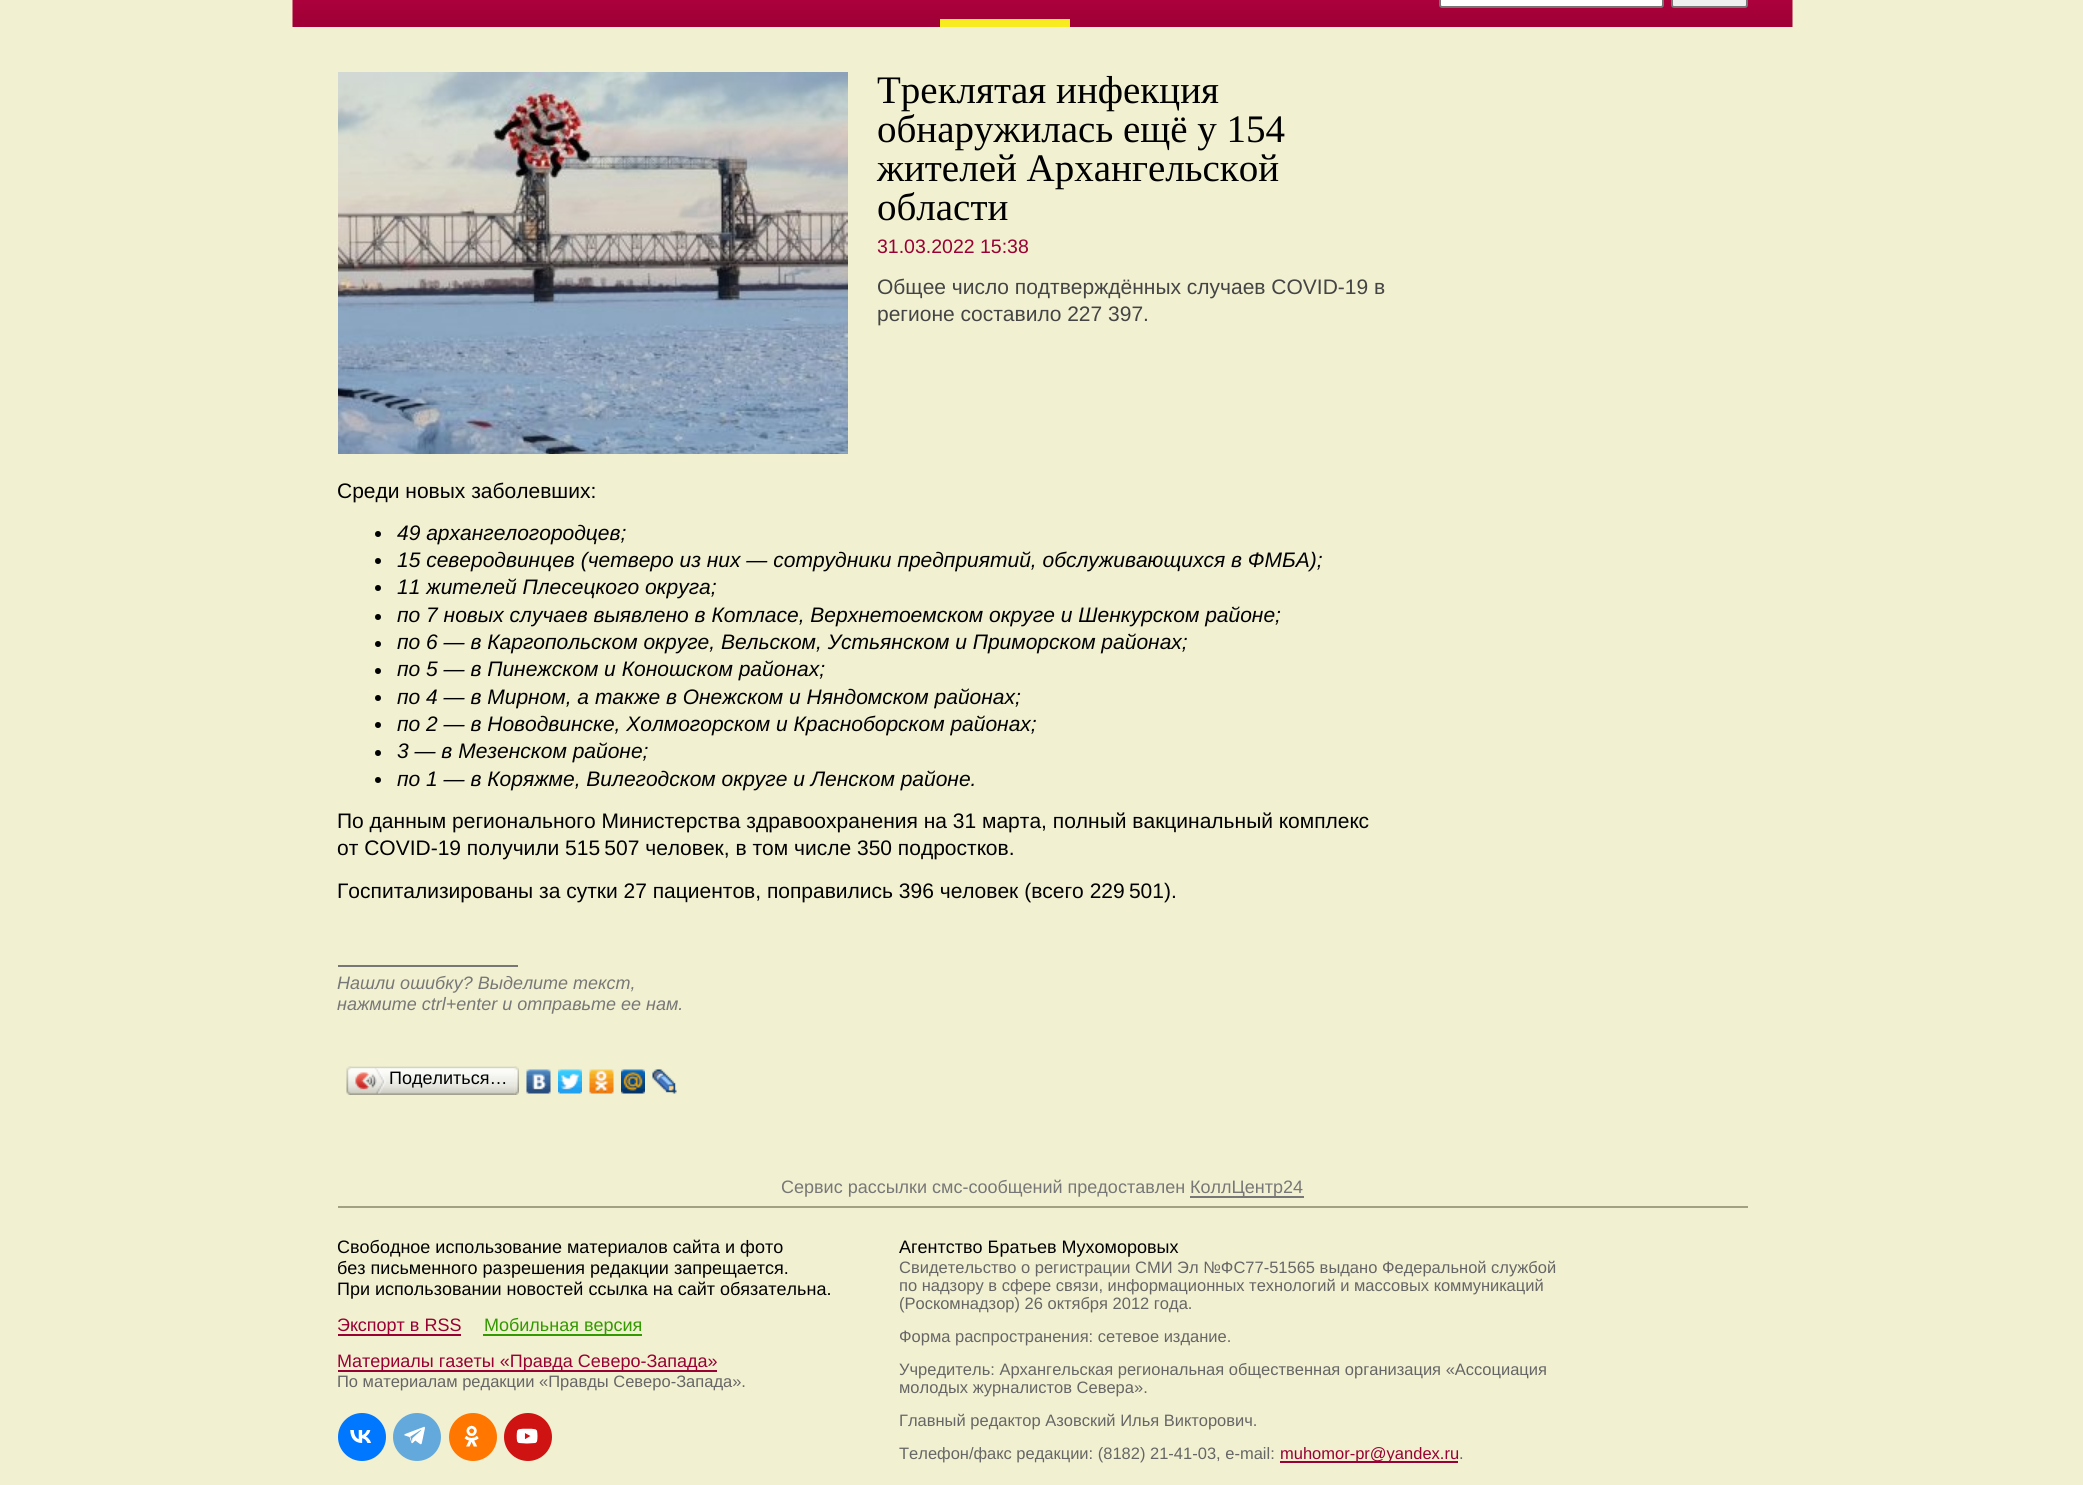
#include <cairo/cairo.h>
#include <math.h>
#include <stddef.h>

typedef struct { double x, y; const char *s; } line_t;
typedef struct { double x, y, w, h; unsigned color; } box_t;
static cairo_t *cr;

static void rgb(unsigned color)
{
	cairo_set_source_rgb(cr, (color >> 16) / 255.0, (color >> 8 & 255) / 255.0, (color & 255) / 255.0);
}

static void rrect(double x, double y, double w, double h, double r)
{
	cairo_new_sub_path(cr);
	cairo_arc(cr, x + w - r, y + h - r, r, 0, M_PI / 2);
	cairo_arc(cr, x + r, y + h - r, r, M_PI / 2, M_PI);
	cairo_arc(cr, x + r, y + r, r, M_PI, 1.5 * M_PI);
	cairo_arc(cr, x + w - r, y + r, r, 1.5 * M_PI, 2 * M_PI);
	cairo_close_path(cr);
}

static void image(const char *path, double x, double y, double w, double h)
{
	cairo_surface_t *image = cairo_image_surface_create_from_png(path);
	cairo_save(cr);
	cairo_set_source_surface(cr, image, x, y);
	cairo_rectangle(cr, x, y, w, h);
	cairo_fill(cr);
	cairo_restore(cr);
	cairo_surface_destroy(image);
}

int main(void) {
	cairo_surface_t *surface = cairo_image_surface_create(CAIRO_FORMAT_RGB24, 2083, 1485);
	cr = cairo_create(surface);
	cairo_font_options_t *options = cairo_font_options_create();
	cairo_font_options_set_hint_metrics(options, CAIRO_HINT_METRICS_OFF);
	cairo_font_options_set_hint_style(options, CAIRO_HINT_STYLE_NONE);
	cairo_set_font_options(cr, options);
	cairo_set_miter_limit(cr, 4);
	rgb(0xf1f0d1);
	cairo_paint(cr);
	image("img/1.png", 292, 0, 1501, 27);
	rgb(0xffffff);
	rrect(1440, -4, 223, 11, 2);
	cairo_fill_preserve(cr);
	rgb(0x767676);
	cairo_stroke(cr);
	rgb(0xefefef);
	rrect(1672, -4, 75, 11, 2);
	cairo_fill_preserve(cr);
	rgb(0x767676);
	cairo_stroke(cr);
	rgb(0xf8ec20);
	cairo_rectangle(cr, 940, 19, 130, 8);
	cairo_fill(cr);
	image("img/2.png", 338, 72, 510, 382);
	rgb(0x000000);
	cairo_arc(cr, 378, 534, 3, 0, 2 * M_PI);
	cairo_fill(cr);
	cairo_arc(cr, 378, 561, 3, 0, 2 * M_PI);
	cairo_fill(cr);
	cairo_arc(cr, 378, 588, 3, 0, 2 * M_PI);
	cairo_fill(cr);
	cairo_arc(cr, 378, 617, 3, 0, 2 * M_PI);
	cairo_fill(cr);
	cairo_arc(cr, 378, 644, 3, 0, 2 * M_PI);
	cairo_fill(cr);
	cairo_arc(cr, 378, 671, 3, 0, 2 * M_PI);
	cairo_fill(cr);
	cairo_arc(cr, 378, 698, 3, 0, 2 * M_PI);
	cairo_fill(cr);
	cairo_arc(cr, 378, 725, 3, 0, 2 * M_PI);
	cairo_fill(cr);
	cairo_arc(cr, 378, 753, 3, 0, 2 * M_PI);
	cairo_fill(cr);
	cairo_arc(cr, 378, 780, 3, 0, 2 * M_PI);
	cairo_fill(cr);
	rgb(0x777777);
	cairo_rectangle(cr, 338, 965, 180, 2);
	cairo_fill(cr);
	image("img/3.png", 351, 1066, 164, 29);
	image("img/4.png", 346, 1066, 5, 29);
	image("img/5.png", 355, 1068, 31, 26);
	image("img/6.png", 514, 1066, 5, 29);
	image("img/7.png", 526, 1069, 25, 25);
	image("img/8.png", 558, 1069, 24, 25);
	image("img/9.png", 589, 1069, 25, 25);
	image("img/10.png", 621, 1069, 24, 25);
	image("img/11.png", 652, 1069, 25, 25);
	{
		static const box_t items[] = {
			{1190, 1196, 114, 2, 0x777777},
			{338, 1206, 1410, 2, 0xa2a182},
			{338, 1334, 123, 2, 0x990033},
			{483, 1334, 159, 2, 0x339900},
			{338, 1370, 379, 2, 0x990033},
		};
		for (size_t i = 0; i < sizeof items / sizeof *items; i++) {
			rgb(items[i].color);
			cairo_rectangle(cr, items[i].x, items[i].y, items[i].w, items[i].h);
			cairo_fill(cr);
		}
	}
	rgb(0x0077ff);
	cairo_arc(cr, 362, 1437, 24, 0, 2 * M_PI);
	cairo_fill(cr);
	image("img/12.png", 350, 1430, 21, 13);
	rgb(0x64a9dc);
	cairo_arc(cr, 417, 1437, 24, 0, 2 * M_PI);
	cairo_fill(cr);
	image("img/13.png", 404, 1426, 21, 19);
	rgb(0xff7700);
	cairo_arc(cr, 473, 1437, 24, 0, 2 * M_PI);
	cairo_fill(cr);
	image("img/14.png", 464, 1425, 15, 22);
	rgb(0xce1312);
	cairo_arc(cr, 528, 1437, 24, 0, 2 * M_PI);
	cairo_fill(cr);
	image("img/15.png", 516, 1428, 22, 16);
	rgb(0x990033);
	cairo_rectangle(cr, 1280, 1461, 178, 2);
	cairo_fill(cr);
	cairo_select_font_face(cr, "Liberation Serif", CAIRO_FONT_SLANT_NORMAL, CAIRO_FONT_WEIGHT_NORMAL);
	cairo_set_font_size(cr, 39);
	rgb(0x000000);
	{
		static const line_t items[] = {
			{877, 103, "Треклятая инфекция"},
			{877, 142, "обнаружилась ещё у 154"},
			{877, 181, "жителей Архангельской"},
			{877, 220, "области"},
		};
		for (size_t i = 0; i < sizeof items / sizeof *items; i++) {
			cairo_move_to(cr, items[i].x, items[i].y);
			cairo_show_text(cr, items[i].s);
		}
	}
	cairo_select_font_face(cr, "Liberation Sans", CAIRO_FONT_SLANT_NORMAL, CAIRO_FONT_WEIGHT_NORMAL);
	cairo_set_font_size(cr, 19.5);
	rgb(0x990033);
	cairo_move_to(cr, 877, 253);
	cairo_show_text(cr, "31.03.2022 15:38");
	cairo_set_font_size(cr, 21);
	rgb(0x444444);
	cairo_move_to(cr, 877, 294);
	cairo_show_text(cr, "Общее число подтверждённых случаев COVID-19 в");
	cairo_move_to(cr, 877, 321);
	cairo_show_text(cr, "регионе составило 227 397.");
	rgb(0x000000);
	cairo_move_to(cr, 337, 498);
	cairo_show_text(cr, "Среди новых заболевших:");
	cairo_select_font_face(cr, "Liberation Sans", CAIRO_FONT_SLANT_ITALIC, CAIRO_FONT_WEIGHT_NORMAL);
	{
		static const line_t items[] = {
			{397, 540, "49 архангелогородцев;"},
			{397, 567, "15 северодвинцев (четверо из них — сотрудники предприятий, обслуживающихся в ФМБА);"},
			{397, 594, "11 жителей Плесецкого округа;"},
			{397, 622, "по 7 новых случаев выявлено в Котласе, Верхнетоемском округе и Шенкурском районе;"},
			{397, 649, "по 6 — в Каргопольском округе, Вельском, Устьянском и Приморском районах;"},
			{397, 676, "по 5 — в Пинежском и Коношском районах;"},
			{397, 704, "по 4 — в Мирном, а также в Онежском и Няндомском районах;"},
			{397, 731, "по 2 — в Новодвинске, Холмогорском и Красноборском районах;"},
			{397, 758, "3 — в Мезенском районе;"},
			{397, 786, "по 1 — в Коряжме, Вилегодском округе и Ленском районе."},
		};
		for (size_t i = 0; i < sizeof items / sizeof *items; i++) {
			cairo_move_to(cr, items[i].x, items[i].y);
			cairo_show_text(cr, items[i].s);
		}
	}
	cairo_select_font_face(cr, "Liberation Sans", CAIRO_FONT_SLANT_NORMAL, CAIRO_FONT_WEIGHT_NORMAL);
	{
		static const line_t items[] = {
			{337, 828, "По данным регионального Министерства здравоохранения на 31 марта, полный вакцинальный комплекс"},
			{337, 855, "от COVID-19 получили 515 507 человек, в том числе 350 подростков."},
			{337, 898, "Госпитализированы за сутки 27 пациентов, поправились 396 человек (всего 229 501)."},
		};
		for (size_t i = 0; i < sizeof items / sizeof *items; i++) {
			cairo_move_to(cr, items[i].x, items[i].y);
			cairo_show_text(cr, items[i].s);
		}
	}
	cairo_select_font_face(cr, "Liberation Sans", CAIRO_FONT_SLANT_ITALIC, CAIRO_FONT_WEIGHT_NORMAL);
	cairo_set_font_size(cr, 18);
	rgb(0x777777);
	cairo_move_to(cr, 337, 989);
	cairo_show_text(cr, "Нашли ошибку? Выделите текст,");
	cairo_move_to(cr, 337, 1010);
	cairo_show_text(cr, "нажмите ctrl+enter и отправьте ее нам.");
	cairo_select_font_face(cr, "Liberation Sans", CAIRO_FONT_SLANT_NORMAL, CAIRO_FONT_WEIGHT_NORMAL);
	rgb(0x000000);
	cairo_move_to(cr, 389, 1084);
	cairo_show_text(cr, "Поделиться…");
	rgb(0x777777);
	cairo_move_to(cr, 781, 1193);
	cairo_show_text(cr, "Сервис рассылки смс-сообщений предоставлен");
	cairo_move_to(cr, 1190, 1193);
	cairo_show_text(cr, "КоллЦентр24");
	rgb(0x000000);
	{
		static const line_t items[] = {
			{337, 1253, "Свободное использование материалов сайта и фото"},
			{337, 1274, "без письменного разрешения редакции запрещается."},
			{337, 1295, "При использовании новостей ссылка на сайт обязательна."},
		};
		for (size_t i = 0; i < sizeof items / sizeof *items; i++) {
			cairo_move_to(cr, items[i].x, items[i].y);
			cairo_show_text(cr, items[i].s);
		}
	}
	rgb(0x990033);
	cairo_move_to(cr, 337, 1331);
	cairo_show_text(cr, "Экспорт в RSS");
	rgb(0x339900);
	cairo_move_to(cr, 484, 1331);
	cairo_show_text(cr, "Мобильная версия");
	rgb(0x990033);
	cairo_move_to(cr, 337, 1367);
	cairo_show_text(cr, "Материалы газеты «Правда Северо-Запада»");
	cairo_set_font_size(cr, 16.5);
	rgb(0x666666);
	cairo_move_to(cr, 337, 1387);
	cairo_show_text(cr, "По материалам редакции «Правды Северо-Запада».");
	cairo_set_font_size(cr, 18);
	rgb(0x000000);
	cairo_move_to(cr, 899, 1253);
	cairo_show_text(cr, "Агентство Братьев Мухоморовых");
	cairo_set_font_size(cr, 16.5);
	rgb(0x666666);
	{
		static const line_t items[] = {
			{899, 1273, "Свидетельство о регистрации СМИ Эл №ФС77-51565 выдано Федеральной службой"},
			{899, 1291, "по надзору в сфере связи, информационных технологий и массовых коммуникаций"},
			{899, 1309, "(Роскомнадзор) 26 октября 2012 года."},
			{899, 1342, "Форма распространения: сетевое издание."},
			{899, 1375, "Учредитель: Архангельская региональная общественная организация «Ассоциация"},
			{899, 1393, "молодых журналистов Севера»."},
			{899, 1426, "Главный редактор Азовский Илья Викторович."},
			{899, 1459, "Телефон/факс редакции: (8182) 21-41-03, e-mail:"},
		};
		for (size_t i = 0; i < sizeof items / sizeof *items; i++) {
			cairo_move_to(cr, items[i].x, items[i].y);
			cairo_show_text(cr, items[i].s);
		}
	}
	rgb(0x990033);
	cairo_move_to(cr, 1280, 1459);
	cairo_show_text(cr, "muhomor-pr@yandex.ru");
	rgb(0x666666);
	cairo_move_to(cr, 1459, 1459);
	cairo_show_text(cr, ".");
	cairo_surface_write_to_png(surface, "page.png");
	cairo_font_options_destroy(options);
	cairo_destroy(cr);
	cairo_surface_destroy(surface);
	return 0;
}
